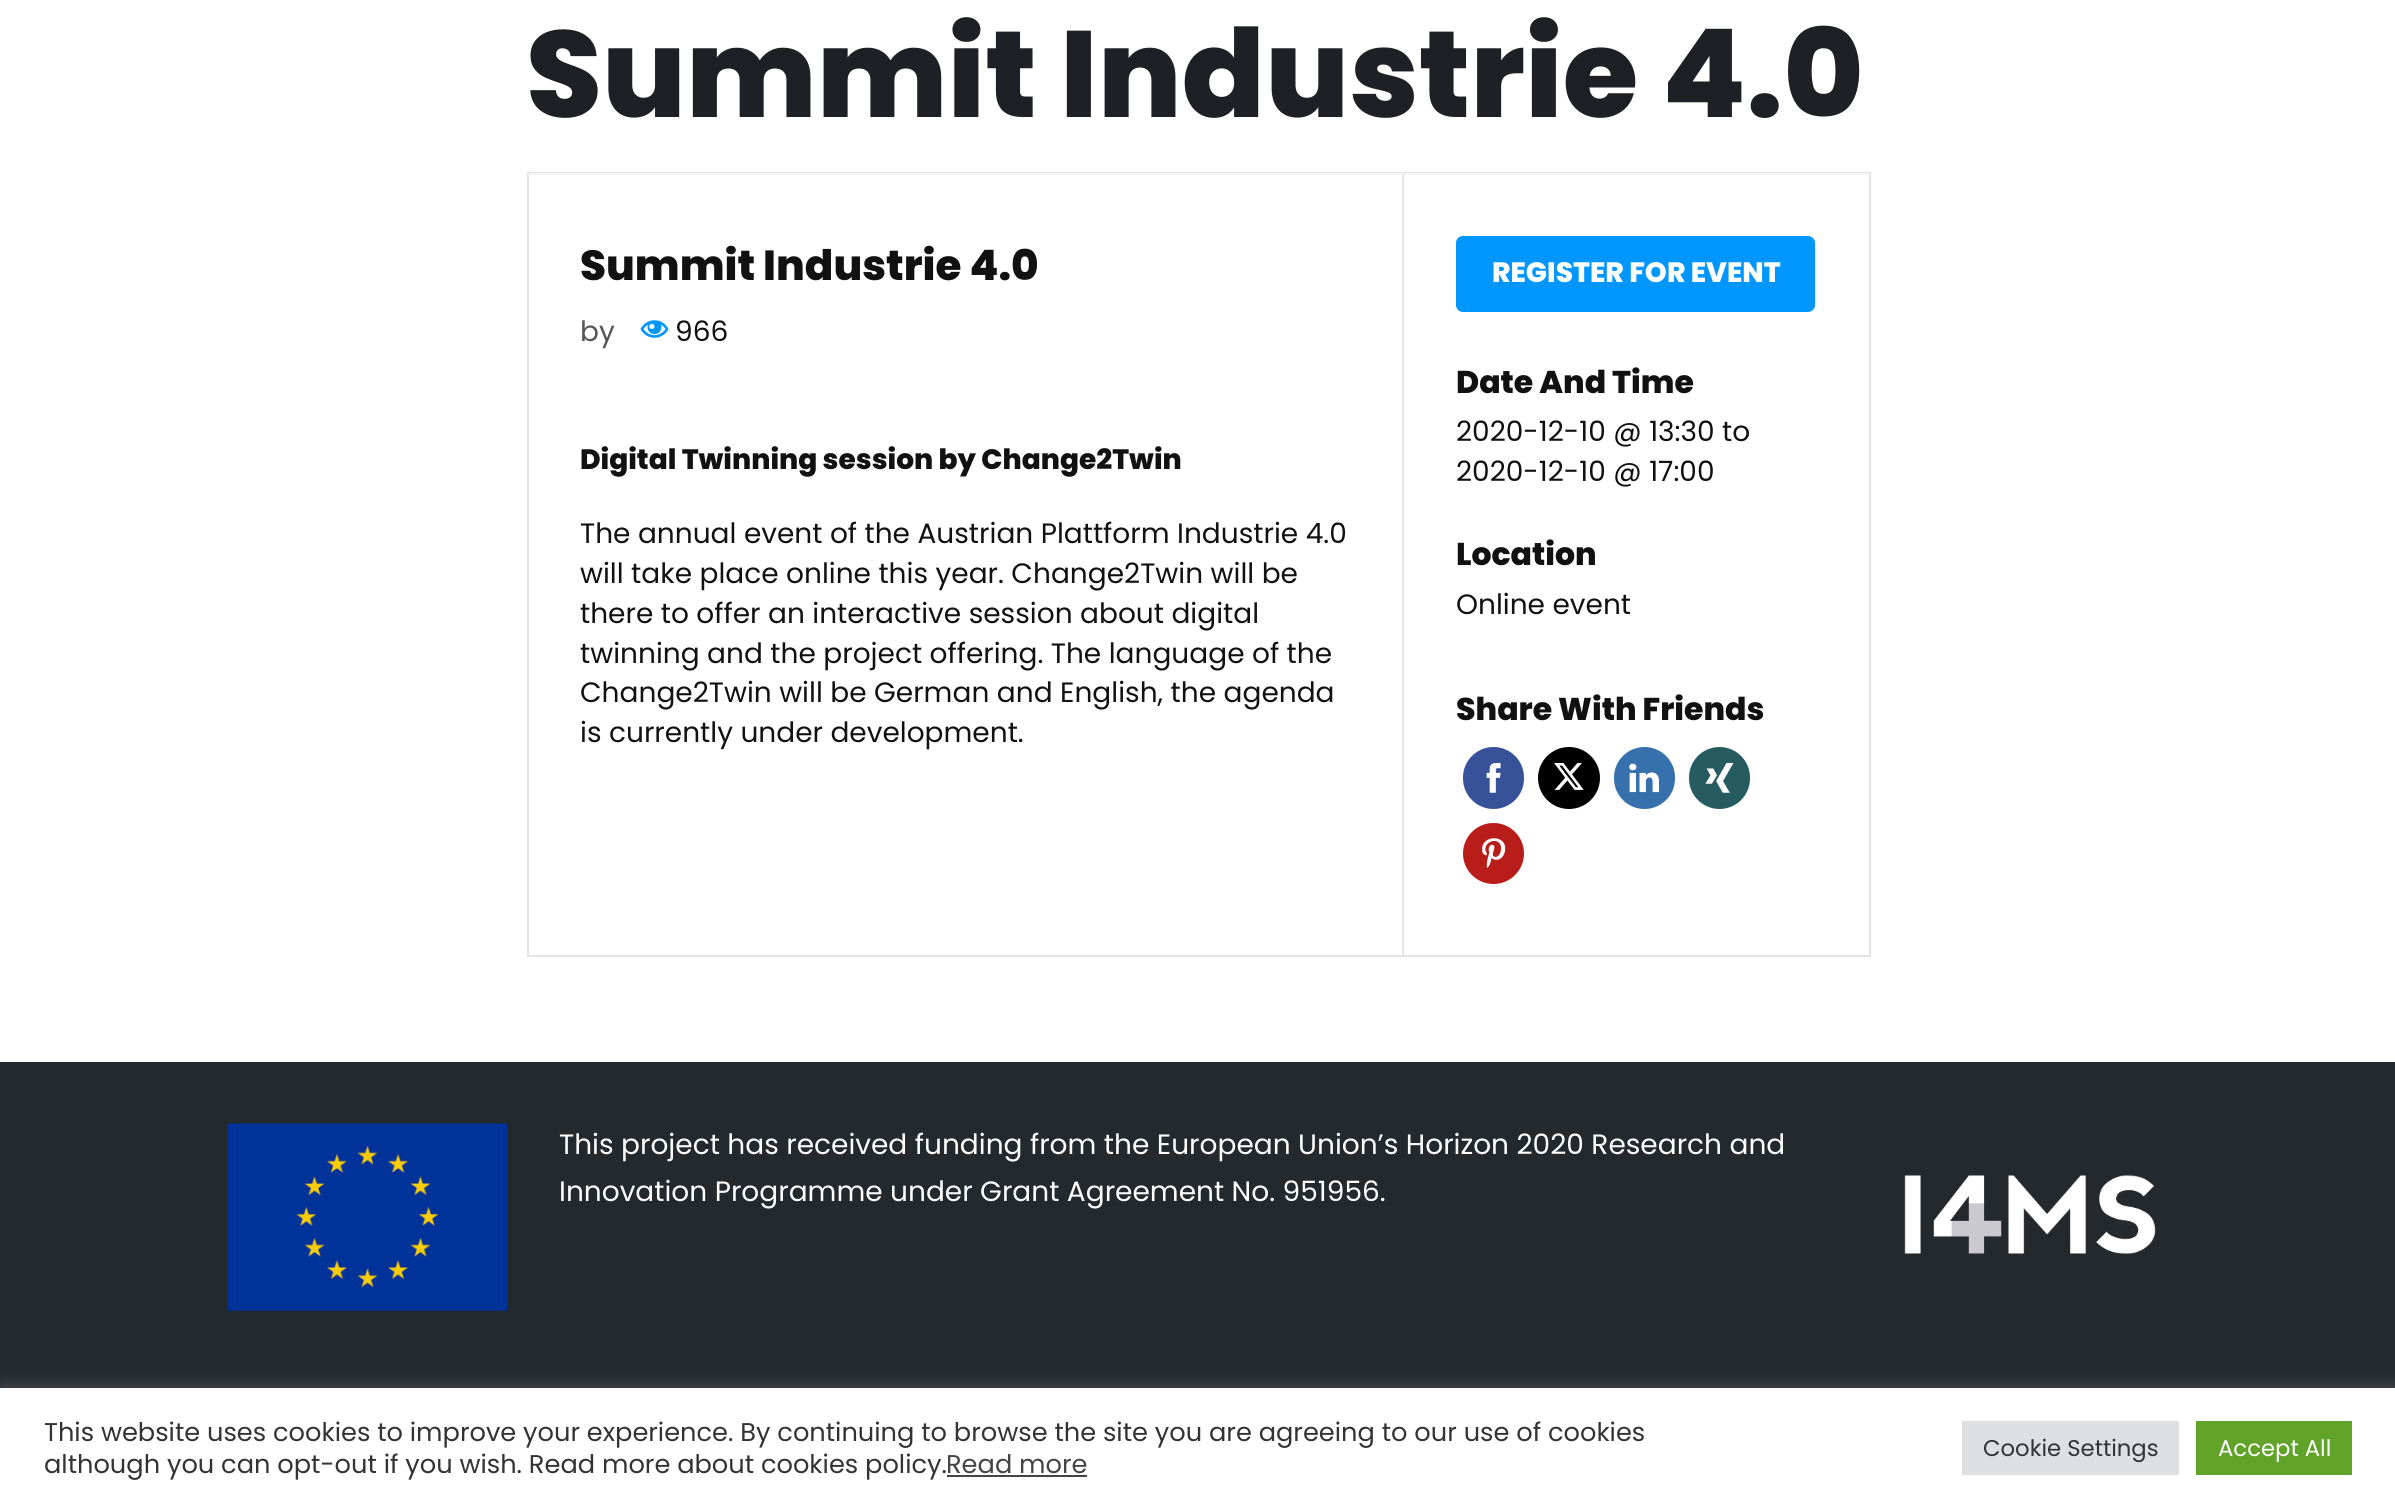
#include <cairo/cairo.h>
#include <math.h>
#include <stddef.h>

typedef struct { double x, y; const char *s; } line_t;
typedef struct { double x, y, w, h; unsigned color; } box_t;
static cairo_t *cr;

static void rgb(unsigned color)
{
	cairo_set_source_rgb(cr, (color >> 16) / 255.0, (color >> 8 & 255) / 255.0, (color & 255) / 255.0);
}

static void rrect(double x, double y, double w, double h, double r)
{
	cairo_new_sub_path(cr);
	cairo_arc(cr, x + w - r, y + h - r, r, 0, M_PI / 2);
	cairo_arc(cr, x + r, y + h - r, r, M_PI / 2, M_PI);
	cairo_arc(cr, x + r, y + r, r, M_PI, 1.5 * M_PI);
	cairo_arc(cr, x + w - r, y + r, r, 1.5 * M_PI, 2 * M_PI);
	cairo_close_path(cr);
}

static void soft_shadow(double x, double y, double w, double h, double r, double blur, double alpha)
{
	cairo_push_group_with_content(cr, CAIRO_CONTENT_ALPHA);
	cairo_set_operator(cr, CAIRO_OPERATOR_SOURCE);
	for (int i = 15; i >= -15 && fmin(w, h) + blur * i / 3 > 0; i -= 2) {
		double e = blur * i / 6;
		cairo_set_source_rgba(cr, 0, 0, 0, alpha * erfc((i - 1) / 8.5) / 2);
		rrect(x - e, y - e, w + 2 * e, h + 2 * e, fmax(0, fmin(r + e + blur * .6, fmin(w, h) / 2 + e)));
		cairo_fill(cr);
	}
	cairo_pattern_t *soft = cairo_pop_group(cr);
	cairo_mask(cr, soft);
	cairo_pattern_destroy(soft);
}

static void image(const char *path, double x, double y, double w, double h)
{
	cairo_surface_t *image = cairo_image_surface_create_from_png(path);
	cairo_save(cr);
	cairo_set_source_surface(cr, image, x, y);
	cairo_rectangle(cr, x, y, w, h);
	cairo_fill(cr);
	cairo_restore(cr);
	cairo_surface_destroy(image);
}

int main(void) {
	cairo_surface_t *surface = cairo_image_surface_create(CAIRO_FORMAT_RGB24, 2395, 1508);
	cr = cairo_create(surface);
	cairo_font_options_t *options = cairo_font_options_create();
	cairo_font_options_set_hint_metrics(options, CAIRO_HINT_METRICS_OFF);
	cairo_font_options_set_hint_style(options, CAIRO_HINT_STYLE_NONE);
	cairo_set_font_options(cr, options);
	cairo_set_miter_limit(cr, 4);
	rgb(0xffffff);
	cairo_paint(cr);
	cairo_rectangle(cr, 528, 173, 1342, 783);
	rgb(0xe4e4e4);
	cairo_stroke(cr);
	rgb(0xf5f5f5);
	cairo_rectangle(cr, 529, 173, 1340, 2);
	cairo_fill(cr);
	image("img/1.png", 640, 320, 29, 18);
	rgb(0xe4e4e4);
	cairo_rectangle(cr, 1402, 175, 2, 781);
	cairo_fill(cr);
	rgb(0x0096ff);
	rrect(1456, 236, 359, 76, 7);
	cairo_fill(cr);
	rgb(0x38529a);
	rrect(1463, 747, 61, 62, 30.5);
	cairo_fill(cr);
	image("img/2.png", 1486, 763, 15, 30);
	rgb(0x000000);
	cairo_arc(cr, 1569, 778, 31, 0, 2 * M_PI);
	cairo_fill(cr);
	image("img/3.png", 1554, 763, 30, 27);
	rgb(0x3671ae);
	rrect(1614, 747, 61, 62, 30.5);
	cairo_fill(cr);
	image("img/4.png", 1629, 763, 30, 30);
	rgb(0x265c60);
	rrect(1689, 747, 61, 62, 30.5);
	cairo_fill(cr);
	image("img/5.png", 1705, 763, 29, 30);
	rgb(0xb81d1a);
	cairo_arc(cr, 1493.5, 853.5, 30.5, 0, 2 * M_PI);
	cairo_fill(cr);
	image("img/6.png", 1482, 838, 24, 30);
	rgb(0x24292e);
	cairo_rectangle(cr, 0, 1062, 2395, 326);
	cairo_fill(cr);
	image("img/7.png", 227, 1123, 281, 188);
	image("img/8.png", 1904, 1175, 252, 79);
	rgb(0xacabab);
	soft_shadow(0, 1386, 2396, 121, 0, 9, 0.3);
	{
		static const box_t items[] = {
			{0, 1388, 2395, 120, 0xffffff},
			{947, 1475, 140, 2, 0x444444},
			{1962, 1421, 217, 54, 0xdedfe0},
			{2196, 1421, 156, 54, 0x61a229},
		};
		for (size_t i = 0; i < sizeof items / sizeof *items; i++) {
			rgb(items[i].color);
			cairo_rectangle(cr, items[i].x, items[i].y, items[i].w, items[i].h);
			cairo_fill(cr);
		}
	}
	cairo_select_font_face(cr, "Poppins ExtraBold", CAIRO_FONT_SLANT_NORMAL, CAIRO_FONT_WEIGHT_NORMAL);
	cairo_set_font_size(cr, 122.5);
	rgb(0x1f2025);
	cairo_move_to(cr, 526, 117);
	cairo_show_text(cr, "Summit Industrie 4.0");
	cairo_set_font_size(cr, 42);
	rgb(0x111111);
	cairo_move_to(cr, 580, 280);
	cairo_show_text(cr, "Summit Industrie 4.0");
	cairo_select_font_face(cr, "Poppins", CAIRO_FONT_SLANT_NORMAL, CAIRO_FONT_WEIGHT_NORMAL);
	cairo_set_font_size(cr, 28);
	rgb(0x555555);
	cairo_move_to(cr, 580, 341);
	cairo_show_text(cr, "by");
	rgb(0x111111);
	cairo_move_to(cr, 675, 341);
	cairo_show_text(cr, "966");
	cairo_select_font_face(cr, "Poppins ExtraBold", CAIRO_FONT_SLANT_NORMAL, CAIRO_FONT_WEIGHT_NORMAL);
	cairo_move_to(cr, 580, 469);
	cairo_show_text(cr, "Digital Twinning session by Change2Twin");
	cairo_select_font_face(cr, "Poppins", CAIRO_FONT_SLANT_NORMAL, CAIRO_FONT_WEIGHT_NORMAL);
	{
		static const line_t items[] = {
			{580, 543, "The annual event of the Austrian Plattform Industrie 4.0"},
			{580, 583, "will take place online this year. Change2Twin will be"},
			{580, 623, "there to offer an interactive session about digital"},
			{580, 663, "twinning and the project offering. The language of the"},
			{580, 702, "Change2Twin will be German and English, the agenda"},
			{580, 742, "is currently under development."},
		};
		for (size_t i = 0; i < sizeof items / sizeof *items; i++) {
			cairo_move_to(cr, items[i].x, items[i].y);
			cairo_show_text(cr, items[i].s);
		}
	}
	cairo_select_font_face(cr, "Poppins ExtraBold", CAIRO_FONT_SLANT_NORMAL, CAIRO_FONT_WEIGHT_NORMAL);
	rgb(0xffffff);
	cairo_move_to(cr, 1492, 282);
	cairo_show_text(cr, "REGISTER FOR EVENT");
	cairo_set_font_size(cr, 31.5);
	rgb(0x111111);
	cairo_move_to(cr, 1456, 393);
	cairo_show_text(cr, "Date And Time");
	cairo_select_font_face(cr, "Poppins", CAIRO_FONT_SLANT_NORMAL, CAIRO_FONT_WEIGHT_NORMAL);
	cairo_set_font_size(cr, 28);
	cairo_move_to(cr, 1456, 441);
	cairo_show_text(cr, "2020-12-10 @ 13:30 to");
	cairo_move_to(cr, 1456, 481);
	cairo_show_text(cr, "2020-12-10 @ 17:00");
	cairo_select_font_face(cr, "Poppins ExtraBold", CAIRO_FONT_SLANT_NORMAL, CAIRO_FONT_WEIGHT_NORMAL);
	cairo_set_font_size(cr, 31.5);
	cairo_move_to(cr, 1456, 565);
	cairo_show_text(cr, "Location");
	cairo_select_font_face(cr, "Poppins", CAIRO_FONT_SLANT_NORMAL, CAIRO_FONT_WEIGHT_NORMAL);
	cairo_set_font_size(cr, 28);
	cairo_move_to(cr, 1456, 614);
	cairo_show_text(cr, "Online event");
	cairo_select_font_face(cr, "Poppins ExtraBold", CAIRO_FONT_SLANT_NORMAL, CAIRO_FONT_WEIGHT_NORMAL);
	cairo_set_font_size(cr, 31.5);
	cairo_move_to(cr, 1456, 720);
	cairo_show_text(cr, "Share With Friends");
	cairo_select_font_face(cr, "Poppins", CAIRO_FONT_SLANT_NORMAL, CAIRO_FONT_WEIGHT_NORMAL);
	cairo_set_font_size(cr, 28);
	rgb(0xffffff);
	cairo_move_to(cr, 559, 1154);
	cairo_show_text(cr, "This project has received funding from the European Union’s Horizon 2020 Research and");
	cairo_move_to(cr, 559, 1201);
	cairo_show_text(cr, "Innovation Programme under Grant Agreement No. 951956.");
	cairo_set_font_size(cr, 25.67);
	rgb(0x333333);
	cairo_move_to(cr, 44, 1441);
	cairo_show_text(cr, "This website uses cookies to improve your experience. By continuing to browse the site you are agreeing to our use of cookies");
	cairo_move_to(cr, 44, 1473);
	cairo_show_text(cr, "although you can opt-out if you wish. Read more about cookies policy.");
	rgb(0x444444);
	cairo_move_to(cr, 946, 1473);
	cairo_show_text(cr, "Read more");
	cairo_set_font_size(cr, 22.75);
	rgb(0x333333);
	cairo_move_to(cr, 1983, 1456);
	cairo_show_text(cr, "Cookie Settings");
	rgb(0xffffff);
	cairo_move_to(cr, 2218, 1456);
	cairo_show_text(cr, "Accept All");
	cairo_surface_write_to_png(surface, "page.png");
	cairo_font_options_destroy(options);
	cairo_destroy(cr);
	cairo_surface_destroy(surface);
	return 0;
}
